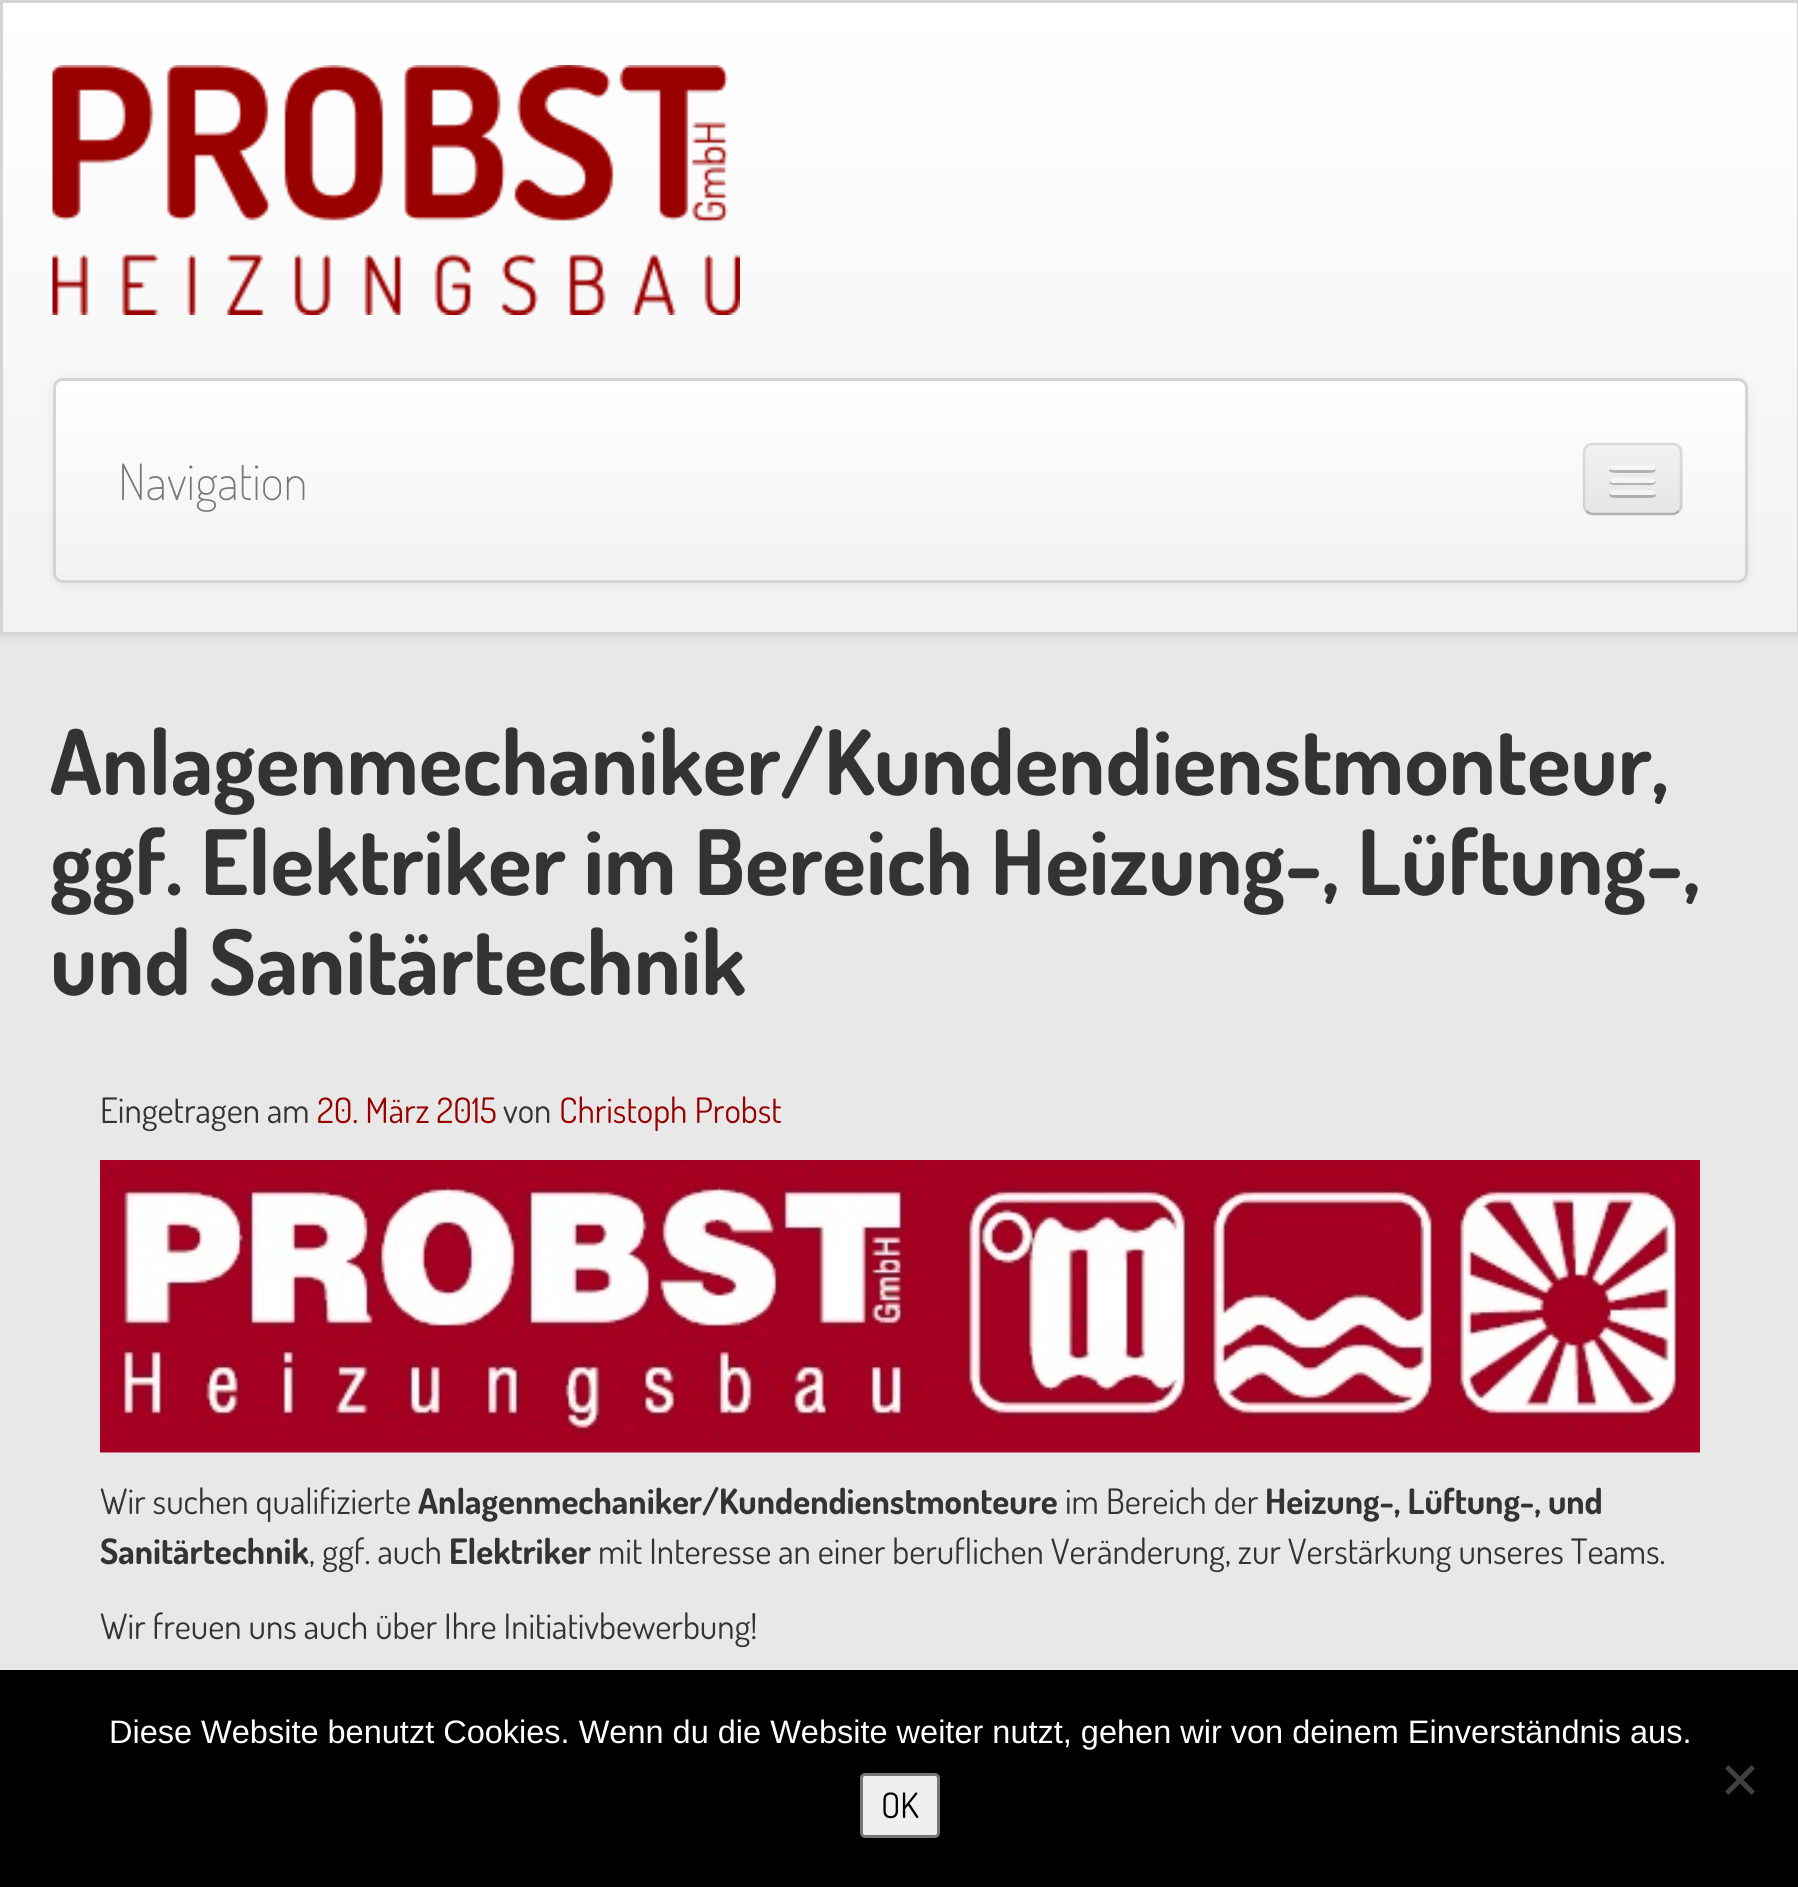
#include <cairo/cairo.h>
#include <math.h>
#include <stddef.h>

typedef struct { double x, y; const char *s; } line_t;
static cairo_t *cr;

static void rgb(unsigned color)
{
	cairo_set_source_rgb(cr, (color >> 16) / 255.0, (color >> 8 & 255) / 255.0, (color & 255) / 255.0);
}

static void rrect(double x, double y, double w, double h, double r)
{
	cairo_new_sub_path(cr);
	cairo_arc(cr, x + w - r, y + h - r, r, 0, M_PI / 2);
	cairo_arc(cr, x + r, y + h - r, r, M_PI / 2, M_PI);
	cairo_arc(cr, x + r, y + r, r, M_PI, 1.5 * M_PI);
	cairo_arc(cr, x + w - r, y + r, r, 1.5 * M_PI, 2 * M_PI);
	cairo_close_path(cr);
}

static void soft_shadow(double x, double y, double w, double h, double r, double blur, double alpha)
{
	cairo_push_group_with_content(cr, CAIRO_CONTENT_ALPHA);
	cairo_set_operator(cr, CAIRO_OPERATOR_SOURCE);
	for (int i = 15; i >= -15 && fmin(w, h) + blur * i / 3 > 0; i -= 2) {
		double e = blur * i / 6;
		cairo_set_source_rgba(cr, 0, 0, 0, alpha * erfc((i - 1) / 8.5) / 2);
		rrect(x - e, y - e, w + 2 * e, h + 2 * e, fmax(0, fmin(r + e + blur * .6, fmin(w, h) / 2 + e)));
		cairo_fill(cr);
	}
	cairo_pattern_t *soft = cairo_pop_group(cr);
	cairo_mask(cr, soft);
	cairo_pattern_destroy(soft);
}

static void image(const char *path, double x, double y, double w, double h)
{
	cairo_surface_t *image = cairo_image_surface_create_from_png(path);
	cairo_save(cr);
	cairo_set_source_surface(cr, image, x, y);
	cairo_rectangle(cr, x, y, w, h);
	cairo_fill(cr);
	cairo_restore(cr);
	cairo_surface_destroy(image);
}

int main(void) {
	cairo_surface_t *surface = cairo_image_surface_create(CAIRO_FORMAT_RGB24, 1798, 1887);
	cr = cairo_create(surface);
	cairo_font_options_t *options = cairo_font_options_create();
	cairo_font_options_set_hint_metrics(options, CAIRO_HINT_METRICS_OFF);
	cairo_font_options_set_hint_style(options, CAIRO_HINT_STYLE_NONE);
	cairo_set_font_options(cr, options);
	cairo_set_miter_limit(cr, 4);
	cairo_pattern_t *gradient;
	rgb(0xe8e8e8);
	cairo_paint(cr);
	rgb(0x000000);
	soft_shadow(0, 3, 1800, 635, 0, 5, 0.07);
	gradient = cairo_pattern_create_linear(900, 2.5, 900, 633);
	cairo_pattern_add_color_stop_rgba(gradient, 0, 1, 1, 1, 1);
	cairo_pattern_add_color_stop_rgba(gradient, 1, 0.949, 0.949, 0.949, 1);
	cairo_set_source(cr, gradient);
	cairo_pattern_destroy(gradient);
	cairo_rectangle(cr, 3, 3, 1794, 629);
	cairo_fill(cr);
	cairo_rectangle(cr, 1.5, 1.5, 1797, 632);
	rgb(0xd4d4d4);
	cairo_set_line_width(cr, 3);
	cairo_stroke(cr);
	image("img/1.png", 52, 65, 688, 250);
	rgb(0x000000);
	soft_shadow(53, 380, 1695, 205, 10, 5, 0.07);
	cairo_save(cr);
	rrect(53, 378, 1695, 205, 10);
	cairo_clip(cr);
	gradient = cairo_pattern_create_linear(900, 380, 900, 580);
	cairo_pattern_add_color_stop_rgba(gradient, 0, 1, 1, 1, 1);
	cairo_pattern_add_color_stop_rgba(gradient, 1, 0.949, 0.949, 0.949, 1);
	cairo_set_source(cr, gradient);
	cairo_pattern_destroy(gradient);
	cairo_rectangle(cr, 53, 380, 1695, 200);
	cairo_fill(cr);
	cairo_restore(cr);
	rrect(54.5, 379.5, 1692, 202, 8.5);
	rgb(0xd4d4d4);
	cairo_stroke(cr);
	rgb(0xededed);
	rrect(1583, 443, 100, 72, 10);
	cairo_fill(cr);
	cairo_save(cr);
	rrect(1583, 443, 100, 72, 10);
	cairo_clip(cr);
	gradient = cairo_pattern_create_linear(1633, 445, 1633, 513);
	cairo_pattern_add_color_stop_rgba(gradient, 0, 0.949, 0.949, 0.949, 1);
	cairo_pattern_add_color_stop_rgba(gradient, 1, 0.898, 0.898, 0.898, 1);
	cairo_set_source(cr, gradient);
	cairo_pattern_destroy(gradient);
	cairo_rectangle(cr, 1583, 445, 100, 68);
	cairo_fill(cr);
	cairo_restore(cr);
	cairo_new_path(cr);
	cairo_move_to(cr, 1678.5, 511);
	cairo_curve_to(cr, 1677, 513, 1675, 514, 1672.5, 514);
	cairo_line_to(cr, 1592.5, 514);
	cairo_curve_to(cr, 1590, 514, 1588, 513, 1586.5, 511);
	cairo_set_source_rgba(cr, 0, 0, 0, 0.25);
	cairo_set_line_width(cr, 2.5);
	cairo_stroke(cr);
	cairo_new_path(cr);
	cairo_move_to(cr, 1586.5, 511);
	cairo_curve_to(cr, 1584.5, 509.5, 1584, 507.5, 1584, 505);
	cairo_line_to(cr, 1584, 452.5);
	cairo_curve_to(cr, 1584, 450, 1584.5, 448, 1586.5, 446.5);
	cairo_curve_to(cr, 1588, 444.5, 1590, 444, 1592.5, 444);
	cairo_line_to(cr, 1672.5, 444);
	cairo_curve_to(cr, 1675, 444, 1677, 444.5, 1678.5, 446.5);
	cairo_curve_to(cr, 1680.5, 448, 1681, 450, 1681, 452.5);
	cairo_line_to(cr, 1681, 505);
	cairo_curve_to(cr, 1681, 507.5, 1680.5, 509.5, 1678.5, 511);
	cairo_set_source_rgba(cr, 0, 0, 0, 0.1);
	cairo_stroke(cr);
	rgb(0xb2b2b2);
	cairo_new_path(cr);
	cairo_move_to(cr, 1610, 469);
	cairo_curve_to(cr, 1607, 473, 1615, 473, 1619, 473);
	cairo_line_to(cr, 1646, 473);
	cairo_curve_to(cr, 1650, 473, 1658, 473, 1655, 469);
	cairo_line_to(cr, 1653, 470);
	cairo_line_to(cr, 1612, 470);
	cairo_close_path(cr);
	cairo_fill(cr);
	rgb(0xf5f5f5);
	rrect(1610, 465, 45, 5, 2.5);
	cairo_fill(cr);
	rgb(0xb0b0b0);
	cairo_new_path(cr);
	cairo_move_to(cr, 1610, 481);
	cairo_curve_to(cr, 1607, 486, 1619, 485, 1619, 485);
	cairo_line_to(cr, 1646, 485);
	cairo_curve_to(cr, 1646, 485, 1658, 486, 1655, 481);
	cairo_curve_to(cr, 1654, 482, 1653, 482, 1652, 482);
	cairo_line_to(cr, 1612, 482);
	cairo_curve_to(cr, 1612, 482, 1611, 482, 1610, 481);
	cairo_close_path(cr);
	cairo_fill(cr);
	rgb(0xf5f5f5);
	rrect(1610, 478, 45, 5, 2.5);
	cairo_fill(cr);
	rgb(0xaeaeae);
	cairo_new_path(cr);
	cairo_move_to(cr, 1610, 494);
	cairo_curve_to(cr, 1607, 498, 1615, 498, 1619, 498);
	cairo_line_to(cr, 1646, 498);
	cairo_curve_to(cr, 1650, 498, 1658, 498, 1655, 494);
	cairo_line_to(cr, 1653, 495);
	cairo_line_to(cr, 1612, 495);
	cairo_close_path(cr);
	cairo_fill(cr);
	rgb(0xf5f5f5);
	rrect(1610, 490, 45, 5, 2.5);
	cairo_fill(cr);
	image("img/2.png", 100, 1160, 1600, 293);
	rgb(0x000000);
	cairo_rectangle(cr, 0, 1670, 1798, 217);
	cairo_fill(cr);
	rgb(0x404040);
	cairo_new_path(cr);
	cairo_move_to(cr, 1751.5, 1765);
	cairo_line_to(cr, 1755, 1768.5);
	cairo_line_to(cr, 1728.5, 1795);
	cairo_line_to(cr, 1725, 1791.5);
	cairo_close_path(cr);
	cairo_fill(cr);
	cairo_new_path(cr);
	cairo_move_to(cr, 1725, 1768.5);
	cairo_line_to(cr, 1728.5, 1765);
	cairo_line_to(cr, 1755, 1791.5);
	cairo_line_to(cr, 1751.5, 1795);
	cairo_close_path(cr);
	cairo_fill(cr);
	rgb(0xefefef);
	rrect(861.5, 1774.5, 77, 62, 3.5);
	cairo_fill_preserve(cr);
	rgb(0x767676);
	cairo_set_line_width(cr, 3);
	cairo_stroke(cr);
	cairo_select_font_face(cr, "Dosis ExtraLight", CAIRO_FONT_SLANT_NORMAL, CAIRO_FONT_WEIGHT_NORMAL);
	cairo_set_font_size(cr, 50);
	rgb(0x777777);
	cairo_move_to(cr, 118, 500);
	cairo_show_text(cr, "Navigation");
	cairo_select_font_face(cr, "Dosis", CAIRO_FONT_SLANT_NORMAL, CAIRO_FONT_WEIGHT_BOLD);
	cairo_set_font_size(cr, 90);
	rgb(0x333333);
	{
		static const line_t items[] = {
			{50, 795, "Anlagenmechaniker/Kundendienstmonteur,"},
			{50, 895, "ggf. Elektriker im Bereich Heizung-, Lüftung-,"},
			{50, 995, "und Sanitärtechnik"},
		};
		for (size_t i = 0; i < sizeof items / sizeof *items; i++) {
			cairo_move_to(cr, items[i].x, items[i].y);
			cairo_show_text(cr, items[i].s);
		}
	}
	cairo_select_font_face(cr, "Dosis", CAIRO_FONT_SLANT_NORMAL, CAIRO_FONT_WEIGHT_NORMAL);
	cairo_set_font_size(cr, 35);
	cairo_move_to(cr, 100, 1123);
	cairo_show_text(cr, "Eingetragen am");
	rgb(0x990000);
	cairo_move_to(cr, 317, 1123);
	cairo_show_text(cr, "20. März 2015");
	rgb(0x333333);
	cairo_move_to(cr, 503, 1123);
	cairo_show_text(cr, "von");
	rgb(0x990000);
	cairo_move_to(cr, 559, 1123);
	cairo_show_text(cr, "Christoph Probst");
	rgb(0x333333);
	cairo_move_to(cr, 100, 1514);
	cairo_show_text(cr, "Wir suchen qualifizierte");
	cairo_select_font_face(cr, "Dosis", CAIRO_FONT_SLANT_NORMAL, CAIRO_FONT_WEIGHT_BOLD);
	cairo_move_to(cr, 418, 1514);
	cairo_show_text(cr, "Anlagenmechaniker/Kundendienstmonteure");
	cairo_select_font_face(cr, "Dosis", CAIRO_FONT_SLANT_NORMAL, CAIRO_FONT_WEIGHT_NORMAL);
	cairo_move_to(cr, 1065, 1514);
	cairo_show_text(cr, "im Bereich der");
	cairo_select_font_face(cr, "Dosis", CAIRO_FONT_SLANT_NORMAL, CAIRO_FONT_WEIGHT_BOLD);
	cairo_move_to(cr, 1265, 1514);
	cairo_show_text(cr, "Heizung-, Lüftung-, und");
	cairo_move_to(cr, 100, 1564);
	cairo_show_text(cr, "Sanitärtechnik");
	cairo_select_font_face(cr, "Dosis", CAIRO_FONT_SLANT_NORMAL, CAIRO_FONT_WEIGHT_NORMAL);
	cairo_move_to(cr, 309, 1564);
	cairo_show_text(cr, ", ggf. auch");
	cairo_select_font_face(cr, "Dosis", CAIRO_FONT_SLANT_NORMAL, CAIRO_FONT_WEIGHT_BOLD);
	cairo_move_to(cr, 449, 1564);
	cairo_show_text(cr, "Elektriker");
	cairo_select_font_face(cr, "Dosis", CAIRO_FONT_SLANT_NORMAL, CAIRO_FONT_WEIGHT_NORMAL);
	cairo_move_to(cr, 598, 1564);
	cairo_show_text(cr, "mit Interesse an einer beruflichen Veränderung, zur Verstärkung unseres Teams.");
	cairo_move_to(cr, 100, 1639);
	cairo_show_text(cr, "Wir freuen uns auch über Ihre Initiativbewerbung!");
	cairo_select_font_face(cr, "Liberation Sans", CAIRO_FONT_SLANT_NORMAL, CAIRO_FONT_WEIGHT_NORMAL);
	cairo_set_font_size(cr, 32.5);
	rgb(0xffffff);
	cairo_move_to(cr, 109, 1743);
	cairo_show_text(cr, "Diese Website benutzt Cookies. Wenn du die Website weiter nutzt, gehen wir von deinem Einverständnis aus.");
	cairo_select_font_face(cr, "Dosis", CAIRO_FONT_SLANT_NORMAL, CAIRO_FONT_WEIGHT_NORMAL);
	cairo_set_font_size(cr, 35);
	rgb(0x000000);
	cairo_move_to(cr, 881, 1818);
	cairo_show_text(cr, "OK");
	cairo_surface_write_to_png(surface, "page.png");
	cairo_font_options_destroy(options);
	cairo_destroy(cr);
	cairo_surface_destroy(surface);
	return 0;
}
